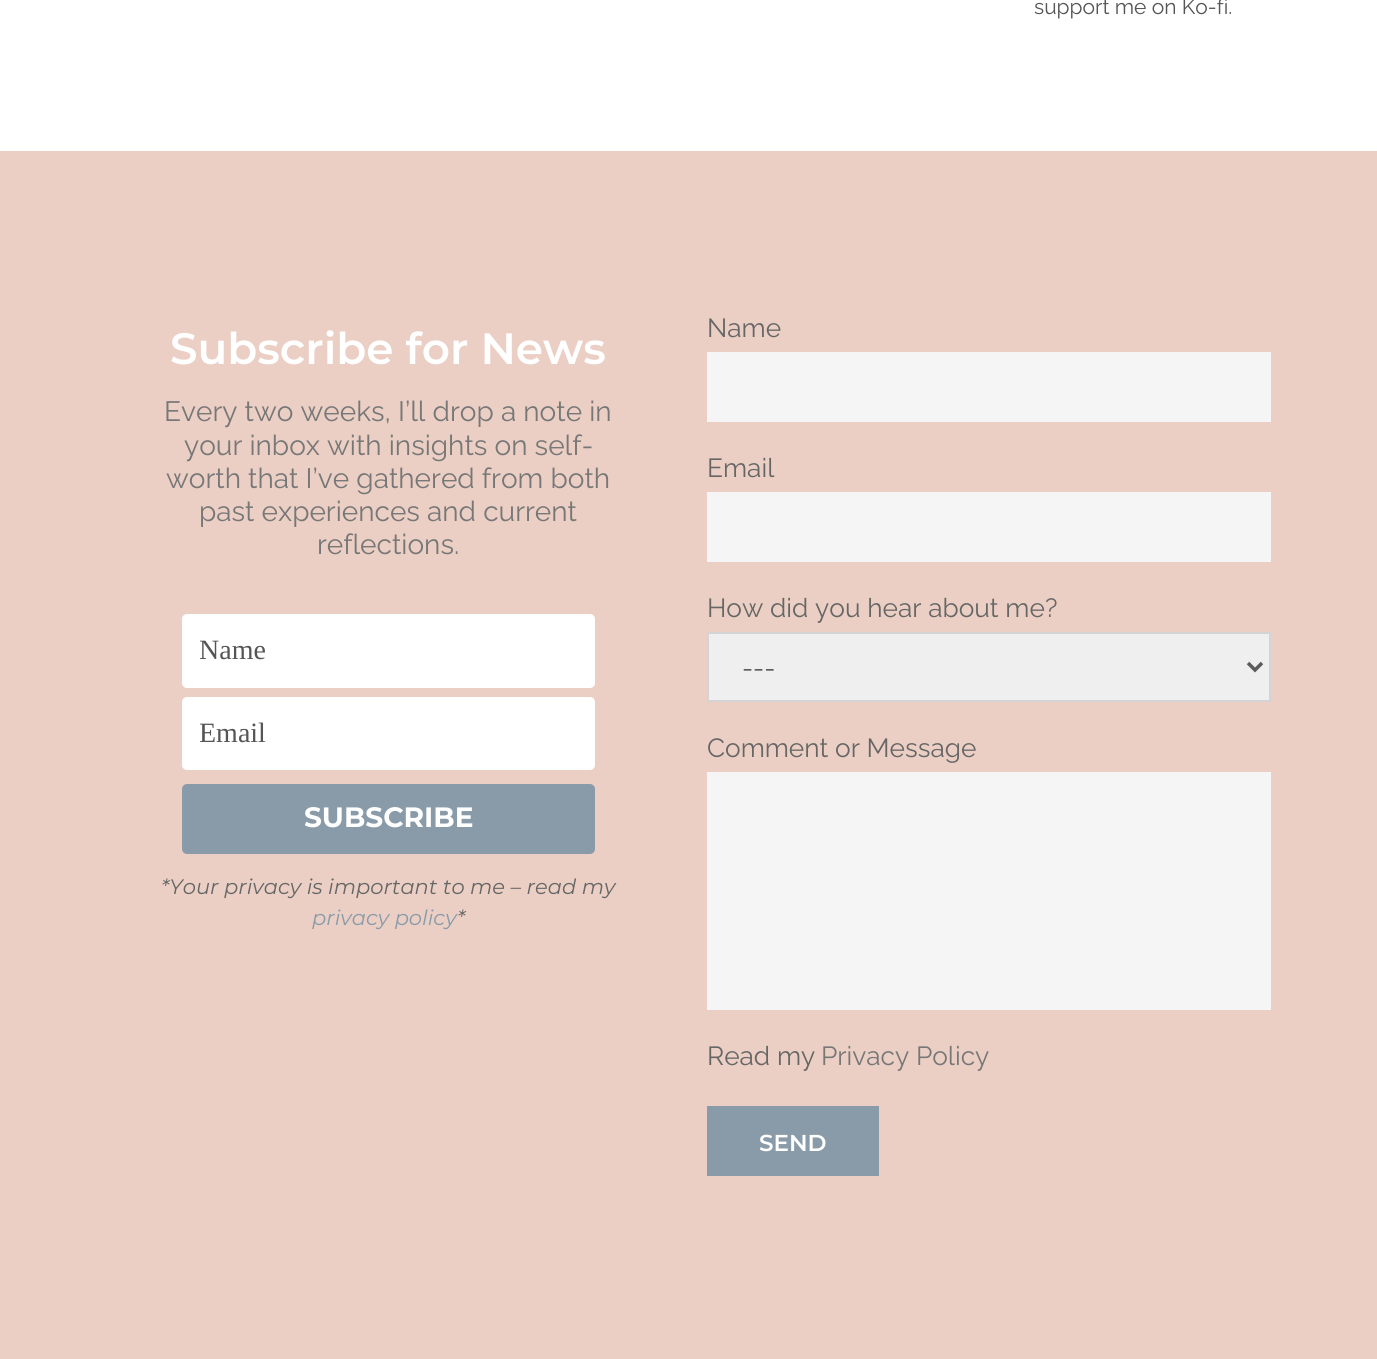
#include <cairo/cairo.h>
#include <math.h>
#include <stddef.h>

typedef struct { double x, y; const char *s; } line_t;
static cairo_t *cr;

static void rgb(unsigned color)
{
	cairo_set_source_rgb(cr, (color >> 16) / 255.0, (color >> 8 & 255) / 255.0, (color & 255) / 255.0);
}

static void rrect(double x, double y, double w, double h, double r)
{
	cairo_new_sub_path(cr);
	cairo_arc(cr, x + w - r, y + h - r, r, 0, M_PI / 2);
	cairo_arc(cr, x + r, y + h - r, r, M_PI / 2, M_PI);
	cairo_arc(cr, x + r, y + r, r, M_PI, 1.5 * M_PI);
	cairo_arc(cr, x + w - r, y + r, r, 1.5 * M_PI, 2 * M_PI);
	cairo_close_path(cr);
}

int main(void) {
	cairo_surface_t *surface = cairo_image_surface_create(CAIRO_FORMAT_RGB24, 1377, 1359);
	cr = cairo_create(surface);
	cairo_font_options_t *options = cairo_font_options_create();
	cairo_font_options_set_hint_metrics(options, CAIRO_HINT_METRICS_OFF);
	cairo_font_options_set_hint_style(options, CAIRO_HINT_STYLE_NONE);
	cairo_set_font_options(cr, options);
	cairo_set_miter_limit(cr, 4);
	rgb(0xffffff);
	cairo_paint(cr);
	rgb(0xebcfc4);
	cairo_rectangle(cr, 0, 151, 1377, 1208);
	cairo_fill(cr);
	rgb(0xffffff);
	rrect(182, 614, 413, 74, 5);
	cairo_fill(cr);
	rrect(182, 697, 413, 73, 5);
	cairo_fill(cr);
	rgb(0x899ba9);
	rrect(182, 784, 413, 70, 5);
	cairo_fill(cr);
	rgb(0xf5f5f5);
	cairo_rectangle(cr, 707, 352, 564, 70);
	cairo_fill(cr);
	cairo_rectangle(cr, 707, 492, 564, 70);
	cairo_fill(cr);
	rgb(0xefefef);
	cairo_rectangle(cr, 708, 633, 562, 68);
	cairo_fill_preserve(cr);
	rgb(0xd4d4d4);
	cairo_stroke(cr);
	cairo_new_path(cr);
	cairo_move_to(cr, 1248, 663);
	cairo_line_to(cr, 1255, 670);
	cairo_line_to(cr, 1262, 663);
	rgb(0x5b5b5b);
	cairo_set_line_width(cr, 3.5);
	cairo_stroke(cr);
	rgb(0xf5f5f5);
	cairo_rectangle(cr, 707, 772, 564, 238);
	cairo_fill(cr);
	rgb(0x899ba9);
	cairo_rectangle(cr, 707, 1106, 172, 70);
	cairo_fill(cr);
	cairo_select_font_face(cr, "Raleway", CAIRO_FONT_SLANT_NORMAL, CAIRO_FONT_WEIGHT_NORMAL);
	cairo_set_font_size(cr, 21);
	rgb(0x555555);
	cairo_move_to(cr, 1034, 14);
	cairo_show_text(cr, "support me on Ko-fi.");
	cairo_select_font_face(cr, "Montserrat SemiBold", CAIRO_FONT_SLANT_NORMAL, CAIRO_FONT_WEIGHT_NORMAL);
	cairo_set_font_size(cr, 43.75);
	rgb(0xffffff);
	cairo_move_to(cr, 170, 364);
	cairo_show_text(cr, "Subscribe for News");
	cairo_select_font_face(cr, "Raleway", CAIRO_FONT_SLANT_NORMAL, CAIRO_FONT_WEIGHT_NORMAL);
	cairo_set_font_size(cr, 28);
	rgb(0x777777);
	{
		static const line_t items[] = {
			{164, 421, "Every two weeks, I’ll drop a note in"},
			{184, 455, "your inbox with insights on self-"},
			{166, 488, "worth that I’ve gathered from both"},
			{199, 521, "past experiences and current"},
			{317, 554, "reflections."},
		};
		for (size_t i = 0; i < sizeof items / sizeof *items; i++) {
			cairo_move_to(cr, items[i].x, items[i].y);
			cairo_show_text(cr, items[i].s);
		}
	}
	cairo_save(cr);
	cairo_rectangle(cr, 200, 635, 378, 32);
	cairo_clip(cr);
	cairo_select_font_face(cr, "Liberation Serif", CAIRO_FONT_SLANT_NORMAL, CAIRO_FONT_WEIGHT_NORMAL);
	rgb(0x555555);
	cairo_move_to(cr, 199, 659);
	cairo_show_text(cr, "Name");
	cairo_restore(cr);
	cairo_save(cr);
	cairo_rectangle(cr, 200, 718, 378, 31);
	cairo_clip(cr);
	cairo_select_font_face(cr, "Liberation Serif", CAIRO_FONT_SLANT_NORMAL, CAIRO_FONT_WEIGHT_NORMAL);
	rgb(0x555555);
	cairo_move_to(cr, 199, 742);
	cairo_show_text(cr, "Email");
	cairo_restore(cr);
	cairo_select_font_face(cr, "Montserrat", CAIRO_FONT_SLANT_NORMAL, CAIRO_FONT_WEIGHT_BOLD);
	rgb(0xffffff);
	cairo_move_to(cr, 304, 827);
	cairo_show_text(cr, "SUBSCRIBE");
	cairo_select_font_face(cr, "Montserrat", CAIRO_FONT_SLANT_ITALIC, CAIRO_FONT_WEIGHT_NORMAL);
	cairo_set_font_size(cr, 21);
	rgb(0x666666);
	cairo_move_to(cr, 161, 894);
	cairo_show_text(cr, "*Your privacy is important to me – read my");
	rgb(0x899ba9);
	cairo_move_to(cr, 312, 925);
	cairo_show_text(cr, "privacy policy");
	rgb(0x666666);
	cairo_move_to(cr, 457, 925);
	cairo_show_text(cr, "*");
	cairo_select_font_face(cr, "Raleway", CAIRO_FONT_SLANT_NORMAL, CAIRO_FONT_WEIGHT_NORMAL);
	cairo_set_font_size(cr, 26.25);
	{
		static const line_t items[] = {
			{707, 337, "Name"},
			{707, 477, "Email"},
			{707, 617, "How did you hear about me?"},
		};
		for (size_t i = 0; i < sizeof items / sizeof *items; i++) {
			cairo_move_to(cr, items[i].x, items[i].y);
			cairo_show_text(cr, items[i].s);
		}
	}
	rgb(0x5b5b5b);
	cairo_move_to(cr, 742, 677);
	cairo_show_text(cr, "---");
	rgb(0x666666);
	cairo_move_to(cr, 707, 757);
	cairo_show_text(cr, "Comment or Message");
	cairo_move_to(cr, 707, 1065);
	cairo_show_text(cr, "Read my");
	rgb(0x777777);
	cairo_move_to(cr, 821, 1065);
	cairo_show_text(cr, "Privacy Policy");
	cairo_select_font_face(cr, "Montserrat SemiBold", CAIRO_FONT_SLANT_NORMAL, CAIRO_FONT_WEIGHT_NORMAL);
	cairo_set_font_size(cr, 23);
	rgb(0xffffff);
	cairo_move_to(cr, 759, 1151);
	cairo_show_text(cr, "SEND");
	cairo_surface_write_to_png(surface, "page.png");
	cairo_font_options_destroy(options);
	cairo_destroy(cr);
	cairo_surface_destroy(surface);
	return 0;
}
